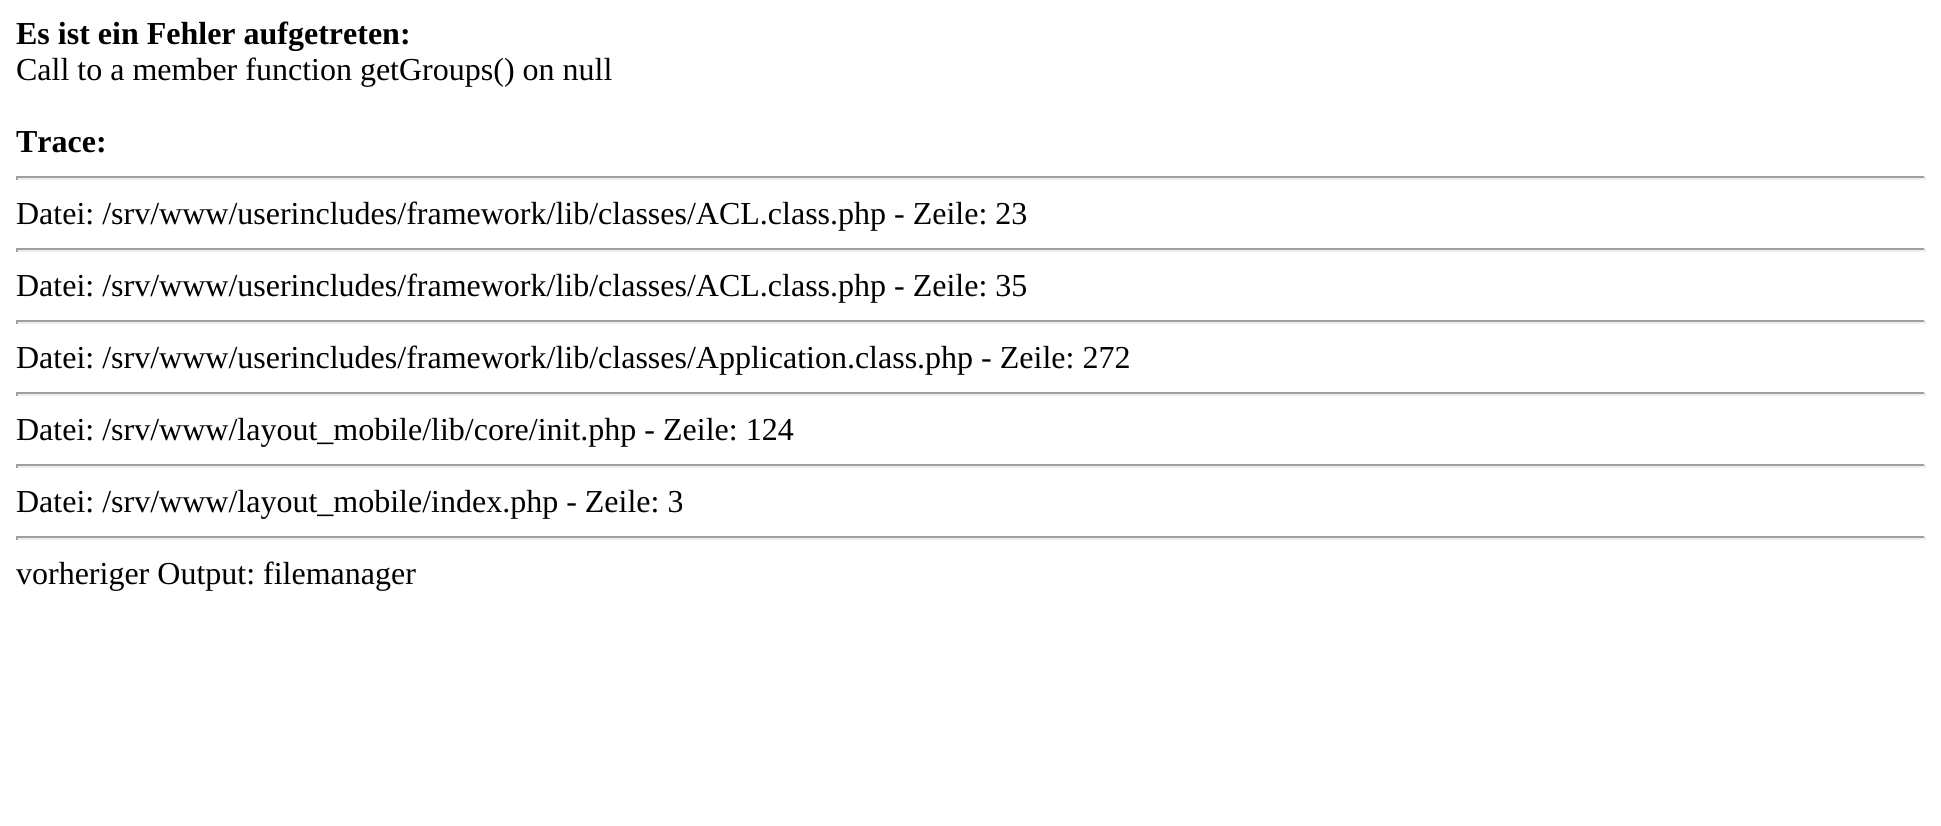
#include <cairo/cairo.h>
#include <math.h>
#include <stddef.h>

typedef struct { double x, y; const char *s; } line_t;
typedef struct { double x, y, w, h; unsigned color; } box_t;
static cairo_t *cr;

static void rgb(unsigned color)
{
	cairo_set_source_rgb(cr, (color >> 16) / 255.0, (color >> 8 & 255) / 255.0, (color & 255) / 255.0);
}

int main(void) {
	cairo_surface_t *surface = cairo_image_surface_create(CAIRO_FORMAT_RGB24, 1941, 826);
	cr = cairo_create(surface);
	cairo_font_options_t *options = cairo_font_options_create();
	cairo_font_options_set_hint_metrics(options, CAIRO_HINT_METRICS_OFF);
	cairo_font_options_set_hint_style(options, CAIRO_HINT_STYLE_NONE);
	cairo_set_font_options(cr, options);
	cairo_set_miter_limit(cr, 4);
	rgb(0xffffff);
	cairo_paint(cr);
	{
		static const box_t items[] = {
			{16, 176, 1910, 2, 0x9f9f9f},
			{1924, 176, 2, 4, 0xeeeeee},
			{16, 178, 1910, 2, 0xeeeeee},
			{16, 176, 2, 4, 0x9f9f9f},
			{16, 248, 1910, 2, 0x9f9f9f},
			{1924, 248, 2, 4, 0xeeeeee},
			{16, 250, 1910, 2, 0xeeeeee},
			{16, 248, 2, 4, 0x9f9f9f},
			{16, 320, 1910, 2, 0x9f9f9f},
			{1924, 320, 2, 4, 0xeeeeee},
			{16, 322, 1910, 2, 0xeeeeee},
			{16, 320, 2, 4, 0x9f9f9f},
			{16, 392, 1910, 2, 0x9f9f9f},
			{1924, 392, 2, 4, 0xeeeeee},
			{16, 394, 1910, 2, 0xeeeeee},
			{16, 392, 2, 4, 0x9f9f9f},
			{16, 464, 1910, 2, 0x9f9f9f},
			{1924, 464, 2, 4, 0xeeeeee},
			{16, 466, 1910, 2, 0xeeeeee},
			{16, 464, 2, 4, 0x9f9f9f},
			{16, 536, 1910, 2, 0x9f9f9f},
			{1924, 536, 2, 4, 0xeeeeee},
			{16, 538, 1910, 2, 0xeeeeee},
			{16, 536, 2, 4, 0x9f9f9f},
		};
		for (size_t i = 0; i < sizeof items / sizeof *items; i++) {
			rgb(items[i].color);
			cairo_rectangle(cr, items[i].x, items[i].y, items[i].w, items[i].h);
			cairo_fill(cr);
		}
	}
	cairo_select_font_face(cr, "Liberation Serif", CAIRO_FONT_SLANT_NORMAL, CAIRO_FONT_WEIGHT_BOLD);
	cairo_set_font_size(cr, 32);
	rgb(0x000000);
	cairo_move_to(cr, 16, 44);
	cairo_show_text(cr, "Es ist ein Fehler aufgetreten:");
	cairo_select_font_face(cr, "Liberation Serif", CAIRO_FONT_SLANT_NORMAL, CAIRO_FONT_WEIGHT_NORMAL);
	cairo_move_to(cr, 16, 80);
	cairo_show_text(cr, "Call to a member function getGroups() on null");
	cairo_select_font_face(cr, "Liberation Serif", CAIRO_FONT_SLANT_NORMAL, CAIRO_FONT_WEIGHT_BOLD);
	cairo_move_to(cr, 16, 152);
	cairo_show_text(cr, "Trace:");
	cairo_select_font_face(cr, "Liberation Serif", CAIRO_FONT_SLANT_NORMAL, CAIRO_FONT_WEIGHT_NORMAL);
	{
		static const line_t items[] = {
			{16, 224, "Datei: /srv/www/userincludes/framework/lib/classes/ACL.class.php - Zeile: 23"},
			{16, 296, "Datei: /srv/www/userincludes/framework/lib/classes/ACL.class.php - Zeile: 35"},
			{16, 368, "Datei: /srv/www/userincludes/framework/lib/classes/Application.class.php - Zeile: 272"},
			{16, 440, "Datei: /srv/www/layout_mobile/lib/core/init.php - Zeile: 124"},
			{16, 512, "Datei: /srv/www/layout_mobile/index.php - Zeile: 3"},
			{16, 584, "vorheriger Output: filemanager"},
		};
		for (size_t i = 0; i < sizeof items / sizeof *items; i++) {
			cairo_move_to(cr, items[i].x, items[i].y);
			cairo_show_text(cr, items[i].s);
		}
	}
	cairo_surface_write_to_png(surface, "page.png");
	cairo_font_options_destroy(options);
	cairo_destroy(cr);
	cairo_surface_destroy(surface);
	return 0;
}
